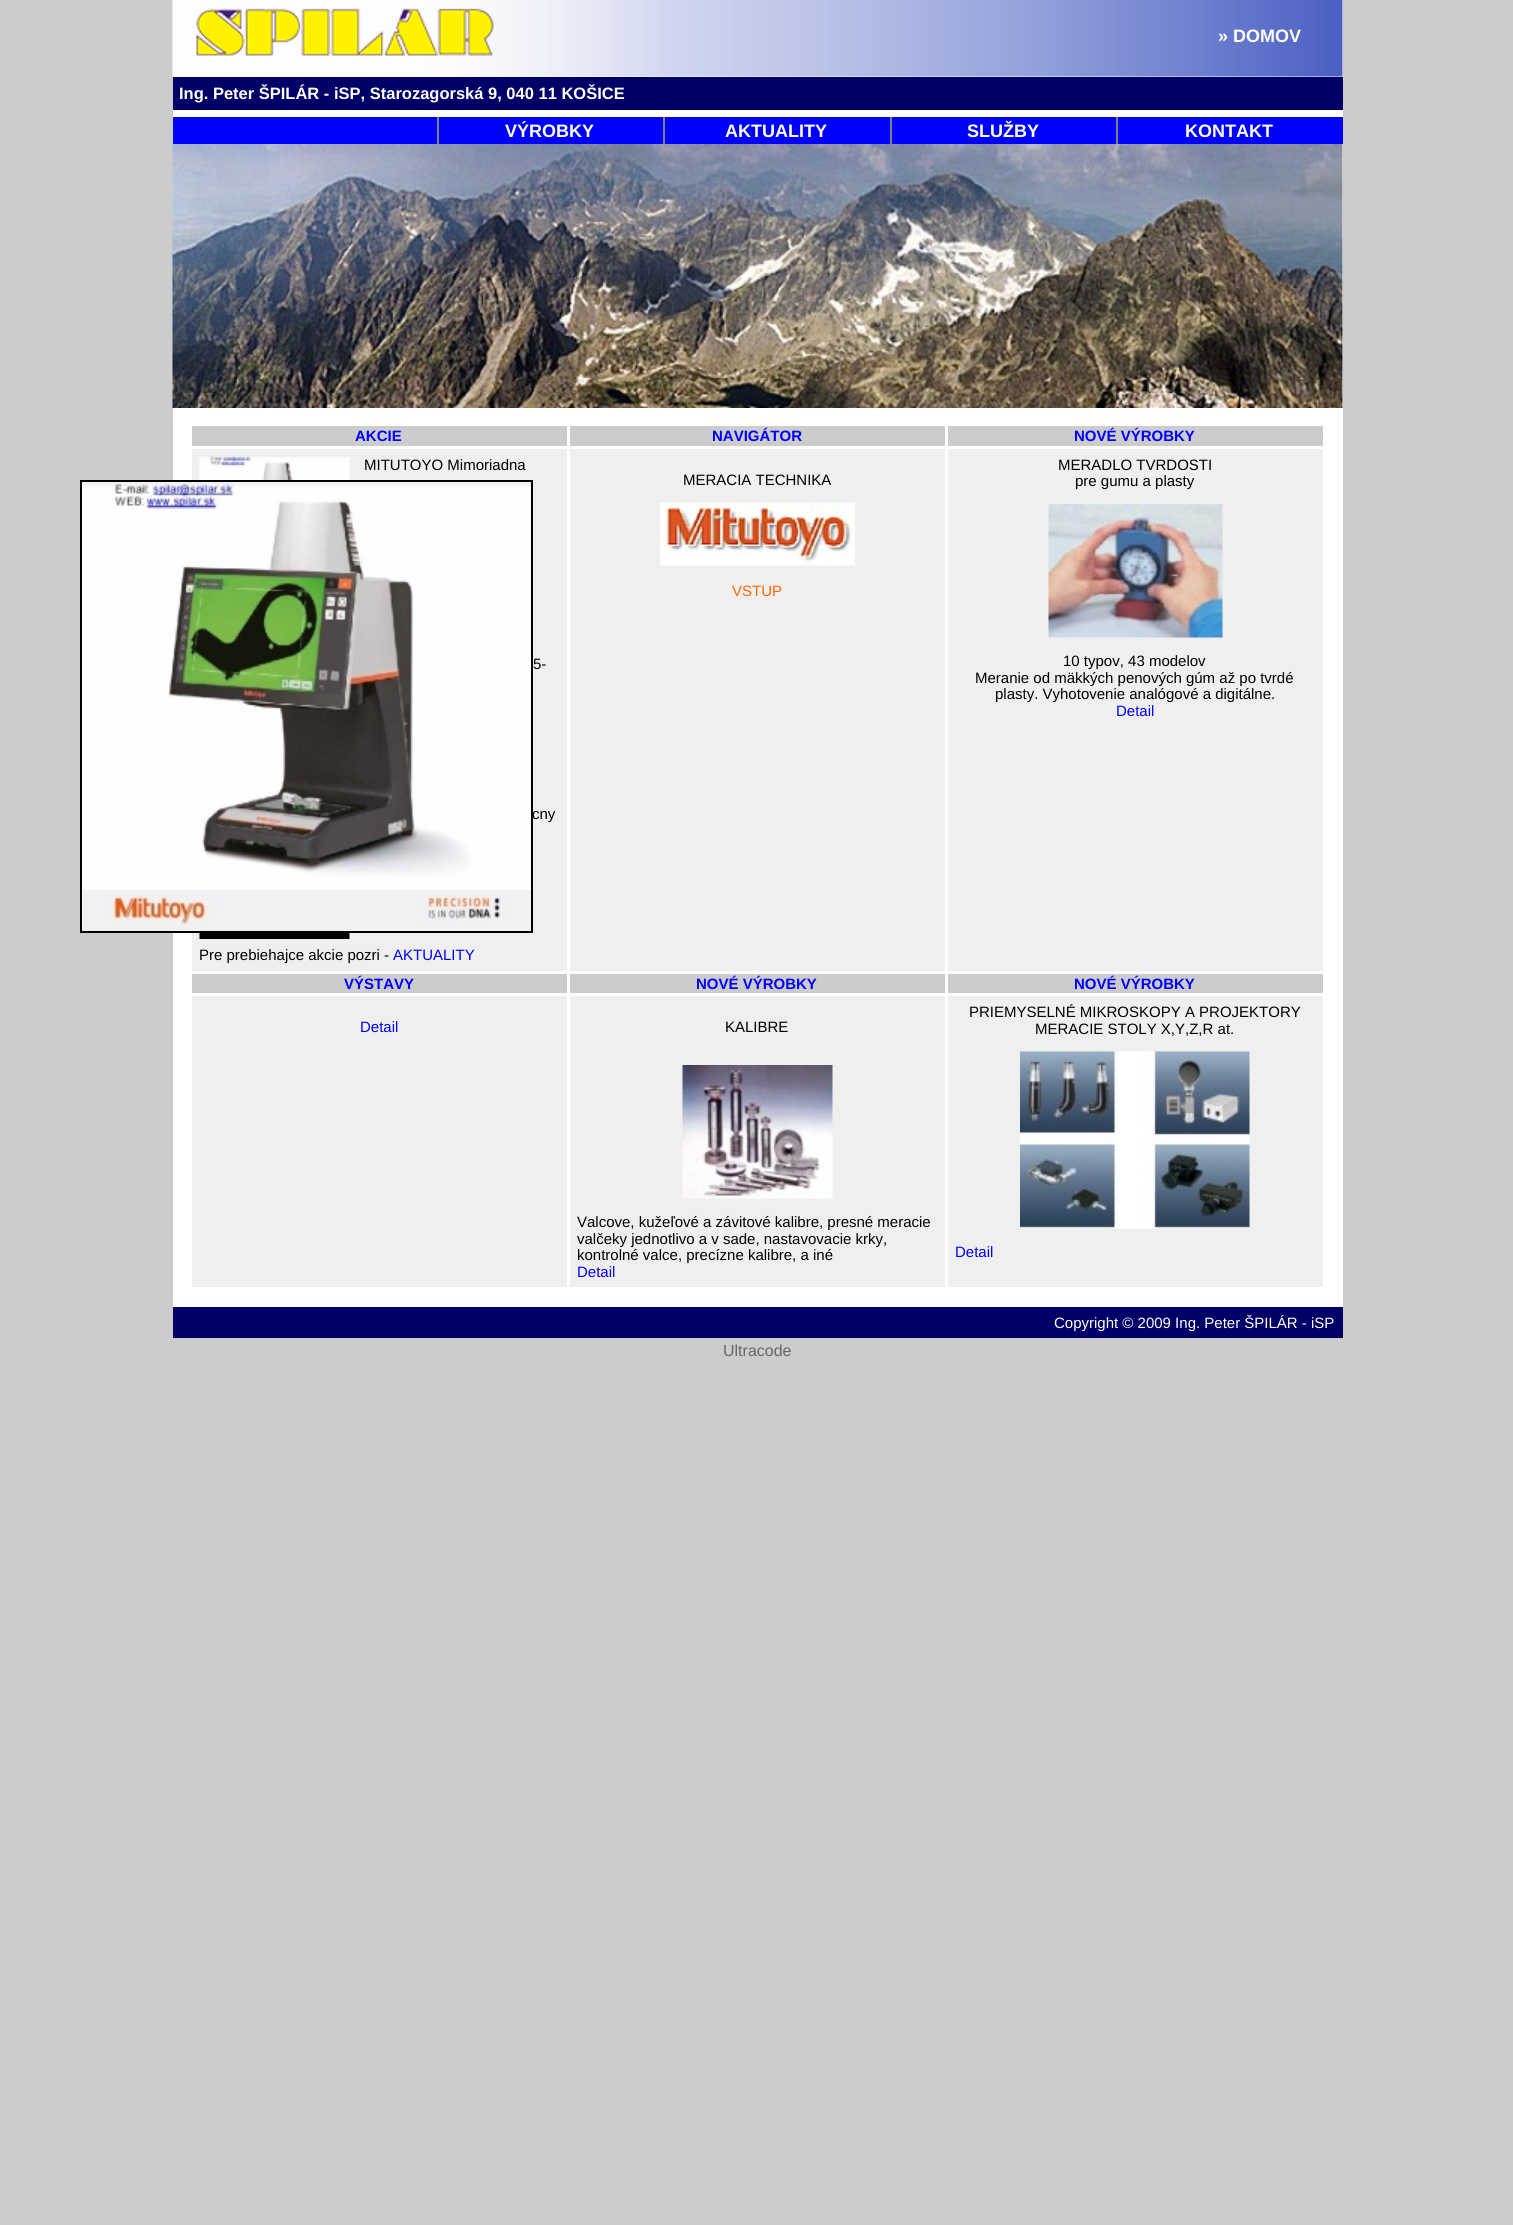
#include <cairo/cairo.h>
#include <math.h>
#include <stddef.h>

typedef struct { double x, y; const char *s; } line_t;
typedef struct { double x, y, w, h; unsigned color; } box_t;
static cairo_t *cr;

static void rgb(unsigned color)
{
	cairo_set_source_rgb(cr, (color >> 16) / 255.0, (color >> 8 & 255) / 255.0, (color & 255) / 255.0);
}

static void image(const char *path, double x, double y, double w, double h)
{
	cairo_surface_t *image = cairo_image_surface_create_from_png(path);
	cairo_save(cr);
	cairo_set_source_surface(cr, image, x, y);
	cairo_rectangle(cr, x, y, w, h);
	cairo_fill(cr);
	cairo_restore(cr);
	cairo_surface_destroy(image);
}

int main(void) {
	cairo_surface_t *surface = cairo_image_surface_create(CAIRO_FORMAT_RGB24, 1513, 2225);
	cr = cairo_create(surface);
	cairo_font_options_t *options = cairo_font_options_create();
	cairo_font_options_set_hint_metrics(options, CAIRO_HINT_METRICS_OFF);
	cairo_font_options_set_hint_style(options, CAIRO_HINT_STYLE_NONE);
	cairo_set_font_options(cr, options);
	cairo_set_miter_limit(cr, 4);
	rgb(0xcccccc);
	cairo_paint(cr);
	rgb(0xffffff);
	cairo_rectangle(cr, 173, 0, 1170, 1307);
	cairo_fill(cr);
	image("img/1.png", 172, 0, 1171, 77);
	image("img/2.png", 196, 8, 298, 48);
	{
		static const box_t items[] = {
			{173, 77, 1170, 33, 0x000066},
			{173, 117, 1170, 27, 0x0000ff},
			{437, 117, 2, 27, 0x808080},
			{663, 117, 2, 27, 0x808080},
			{890, 117, 2, 27, 0x808080},
			{1116, 117, 2, 27, 0x808080},
		};
		for (size_t i = 0; i < sizeof items / sizeof *items; i++) {
			rgb(items[i].color);
			cairo_rectangle(cr, items[i].x, items[i].y, items[i].w, items[i].h);
			cairo_fill(cr);
		}
	}
	image("img/3.png", 172, 144, 1171, 264);
	{
		static const box_t items[] = {
			{192, 426, 375, 20, 0xcccccc},
			{570, 426, 375, 20, 0xcccccc},
			{948, 426, 375, 20, 0xcccccc},
			{192, 449, 375, 522, 0xefefef},
		};
		for (size_t i = 0; i < sizeof items / sizeof *items; i++) {
			rgb(items[i].color);
			cairo_rectangle(cr, items[i].x, items[i].y, items[i].w, items[i].h);
			cairo_fill(cr);
		}
	}
	image("img/4.png", 199, 456, 151, 24);
	image("img/5.png", 199, 933, 151, 6);
	cairo_rectangle(cr, 570, 449, 375, 522);
	cairo_fill(cr);
	image("img/6.png", 660, 502, 195, 64);
	cairo_rectangle(cr, 948, 449, 375, 522);
	cairo_fill(cr);
	image("img/7.png", 1048, 504, 175, 134);
	{
		static const box_t items[] = {
			{192, 974, 375, 19, 0xcccccc},
			{570, 974, 375, 19, 0xcccccc},
			{948, 974, 375, 19, 0xcccccc},
			{192, 996, 375, 291, 0xefefef},
			{570, 996, 375, 291, 0xefefef},
		};
		for (size_t i = 0; i < sizeof items / sizeof *items; i++) {
			rgb(items[i].color);
			cairo_rectangle(cr, items[i].x, items[i].y, items[i].w, items[i].h);
			cairo_fill(cr);
		}
	}
	image("img/8.png", 682, 1065, 151, 134);
	cairo_rectangle(cr, 948, 996, 375, 291);
	cairo_fill(cr);
	image("img/9.png", 1020, 1051, 230, 178);
	image("img/10.png", 82, 482, 449, 449);
	cairo_rectangle(cr, 81, 481, 451, 451);
	rgb(0x000000);
	cairo_stroke(cr);
	rgb(0x000066);
	cairo_rectangle(cr, 173, 1307, 1170, 31);
	cairo_fill(cr);
	cairo_select_font_face(cr, "Liberation Sans", CAIRO_FONT_SLANT_NORMAL, CAIRO_FONT_WEIGHT_BOLD);
	cairo_set_font_size(cr, 18);
	rgb(0xffffff);
	cairo_move_to(cr, 1218, 42);
	cairo_show_text(cr, "» DOMOV");
	cairo_set_font_size(cr, 16.5);
	cairo_move_to(cr, 179, 99);
	cairo_show_text(cr, "Ing. Peter ŠPILÁR - iSP, Starozagorská 9, 040 11 KOŠICE");
	cairo_set_font_size(cr, 18);
	{
		static const line_t items[] = {
			{505, 137, "VÝROBKY"},
			{725, 137, "AKTUALITY"},
			{967, 137, "SLUŽBY"},
			{1185, 137, "KONTAKT"},
		};
		for (size_t i = 0; i < sizeof items / sizeof *items; i++) {
			cairo_move_to(cr, items[i].x, items[i].y);
			cairo_show_text(cr, items[i].s);
		}
	}
	cairo_set_font_size(cr, 15);
	rgb(0x0000ff);
	{
		static const line_t items[] = {
			{355, 441, "AKCIE"},
			{712, 441, "NAVIGÁTOR"},
			{1074, 441, "NOVÉ VÝROBKY"},
		};
		for (size_t i = 0; i < sizeof items / sizeof *items; i++) {
			cairo_move_to(cr, items[i].x, items[i].y);
			cairo_show_text(cr, items[i].s);
		}
	}
	cairo_select_font_face(cr, "Liberation Sans", CAIRO_FONT_SLANT_NORMAL, CAIRO_FONT_WEIGHT_NORMAL);
	rgb(0x000000);
	{
		static const line_t items[] = {
			{364, 470, "MITUTOYO Mimoriadna"},
			{533, 669, "5-"},
			{532, 819, "cny"},
			{199, 960, "Pre prebiehajce akcie pozri -"},
		};
		for (size_t i = 0; i < sizeof items / sizeof *items; i++) {
			cairo_move_to(cr, items[i].x, items[i].y);
			cairo_show_text(cr, items[i].s);
		}
	}
	rgb(0x0000ff);
	cairo_move_to(cr, 393, 960);
	cairo_show_text(cr, "AKTUALITY");
	rgb(0x000000);
	cairo_move_to(cr, 683, 485);
	cairo_show_text(cr, "MERACIA TECHNIKA");
	rgb(0xff6600);
	cairo_move_to(cr, 732, 596);
	cairo_show_text(cr, "VSTUP");
	rgb(0x000000);
	{
		static const line_t items[] = {
			{1058, 470, "MERADLO TVRDOSTI"},
			{1075, 486, "pre gumu a plasty"},
			{1063, 666, "10 typov, 43 modelov"},
			{975, 683, "Meranie od mäkkých penových gúm až po tvrdé"},
			{995, 699, "plasty. Vyhotovenie analógové a digitálne."},
		};
		for (size_t i = 0; i < sizeof items / sizeof *items; i++) {
			cairo_move_to(cr, items[i].x, items[i].y);
			cairo_show_text(cr, items[i].s);
		}
	}
	rgb(0x0000ff);
	cairo_move_to(cr, 1116, 716);
	cairo_show_text(cr, "Detail");
	cairo_select_font_face(cr, "Liberation Sans", CAIRO_FONT_SLANT_NORMAL, CAIRO_FONT_WEIGHT_BOLD);
	{
		static const line_t items[] = {
			{344, 989, "VÝSTAVY"},
			{696, 989, "NOVÉ VÝROBKY"},
			{1074, 989, "NOVÉ VÝROBKY"},
		};
		for (size_t i = 0; i < sizeof items / sizeof *items; i++) {
			cairo_move_to(cr, items[i].x, items[i].y);
			cairo_show_text(cr, items[i].s);
		}
	}
	cairo_select_font_face(cr, "Liberation Sans", CAIRO_FONT_SLANT_NORMAL, CAIRO_FONT_WEIGHT_NORMAL);
	cairo_move_to(cr, 360, 1032);
	cairo_show_text(cr, "Detail");
	rgb(0x000000);
	{
		static const line_t items[] = {
			{725, 1032, "KALIBRE"},
			{577, 1227, "Valcove, kužeľové a závitové kalibre, presné meracie"},
			{577, 1244, "valčeky jednotlivo a v sade, nastavovacie krky,"},
			{577, 1260, "kontrolné valce, precízne kalibre, a iné"},
		};
		for (size_t i = 0; i < sizeof items / sizeof *items; i++) {
			cairo_move_to(cr, items[i].x, items[i].y);
			cairo_show_text(cr, items[i].s);
		}
	}
	rgb(0x0000ff);
	cairo_move_to(cr, 577, 1277);
	cairo_show_text(cr, "Detail");
	rgb(0x000000);
	cairo_move_to(cr, 969, 1017);
	cairo_show_text(cr, "PRIEMYSELNÉ MIKROSKOPY A PROJEKTORY");
	cairo_move_to(cr, 1035, 1034);
	cairo_show_text(cr, "MERACIE STOLY X,Y,Z,R at.");
	rgb(0x0000ff);
	cairo_move_to(cr, 955, 1257);
	cairo_show_text(cr, "Detail");
	rgb(0xffffff);
	cairo_move_to(cr, 1054, 1328);
	cairo_show_text(cr, "Copyright © 2009 Ing. Peter ŠPILÁR - iSP");
	cairo_set_font_size(cr, 16);
	rgb(0x666666);
	cairo_move_to(cr, 723, 1356);
	cairo_show_text(cr, "Ultracode");
	cairo_surface_write_to_png(surface, "page.png");
	cairo_font_options_destroy(options);
	cairo_destroy(cr);
	cairo_surface_destroy(surface);
	return 0;
}
